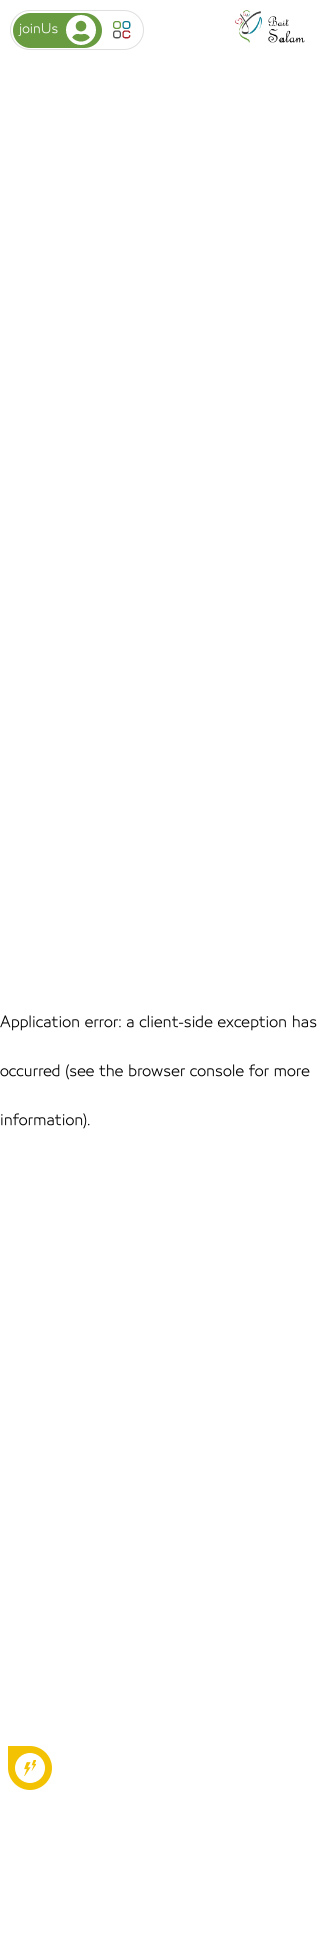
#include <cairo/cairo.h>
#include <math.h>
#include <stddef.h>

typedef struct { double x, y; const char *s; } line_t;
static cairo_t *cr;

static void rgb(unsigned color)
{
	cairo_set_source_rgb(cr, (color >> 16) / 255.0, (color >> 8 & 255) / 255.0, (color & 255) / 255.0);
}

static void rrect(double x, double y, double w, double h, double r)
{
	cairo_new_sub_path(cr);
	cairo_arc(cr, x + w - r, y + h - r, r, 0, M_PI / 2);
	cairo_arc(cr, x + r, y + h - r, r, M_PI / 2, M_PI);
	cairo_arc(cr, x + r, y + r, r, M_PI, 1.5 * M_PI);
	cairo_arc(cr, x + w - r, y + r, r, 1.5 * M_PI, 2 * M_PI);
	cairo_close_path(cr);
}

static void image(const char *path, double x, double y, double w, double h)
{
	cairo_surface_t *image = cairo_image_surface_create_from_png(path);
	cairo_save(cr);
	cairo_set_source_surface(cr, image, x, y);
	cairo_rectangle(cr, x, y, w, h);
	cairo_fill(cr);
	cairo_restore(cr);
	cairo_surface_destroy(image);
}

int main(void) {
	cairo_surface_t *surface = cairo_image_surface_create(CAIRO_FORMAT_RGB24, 325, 1935);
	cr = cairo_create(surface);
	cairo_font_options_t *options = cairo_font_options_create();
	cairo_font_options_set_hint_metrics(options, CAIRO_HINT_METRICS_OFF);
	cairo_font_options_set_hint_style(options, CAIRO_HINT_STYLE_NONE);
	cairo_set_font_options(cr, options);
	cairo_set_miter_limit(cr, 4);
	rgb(0xffffff);
	cairo_paint(cr);
	rrect(10.5, 10.5, 133, 39, 19.5);
	rgb(0xdfdfdf);
	cairo_set_line_width(cr, 1);
	cairo_stroke(cr);
	rgb(0x699c41);
	rrect(13, 13, 89, 35, 17.5);
	cairo_fill(cr);
	image("img/1.png", 66, 15, 30, 30);
	image("img/2.png", 113, 21, 18, 18);
	image("img/3.png", 235, 10, 70, 33);
	rgb(0xf3c203);
	cairo_new_path(cr);
	cairo_move_to(cr, 8, 1746);
	cairo_line_to(cr, 30, 1746);
	cairo_curve_to(cr, 42, 1746, 52, 1756, 52, 1768);
	cairo_curve_to(cr, 52, 1780, 42, 1790, 30, 1790);
	cairo_curve_to(cr, 18, 1790, 8, 1780, 8, 1768);
	cairo_close_path(cr);
	cairo_fill(cr);
	rgb(0xffffff);
	cairo_arc(cr, 30, 1768, 15, 0, 2 * M_PI);
	cairo_fill(cr);
	image("img/4.png", 24, 1760, 12, 16);
	cairo_select_font_face(cr, "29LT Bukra", CAIRO_FONT_SLANT_NORMAL, CAIRO_FONT_WEIGHT_NORMAL);
	cairo_set_font_size(cr, 12);
	cairo_move_to(cr, 19, 33);
	cairo_show_text(cr, "joinUs");
	cairo_set_font_size(cr, 14);
	rgb(0x000000);
	{
		static const line_t items[] = {
			{0, 1027, "Application error: a client-side exception has"},
			{0, 1076, "occurred (see the browser console for more"},
			{0, 1125, "information)."},
		};
		for (size_t i = 0; i < sizeof items / sizeof *items; i++) {
			cairo_move_to(cr, items[i].x, items[i].y);
			cairo_show_text(cr, items[i].s);
		}
	}
	cairo_surface_write_to_png(surface, "page.png");
	cairo_font_options_destroy(options);
	cairo_destroy(cr);
	cairo_surface_destroy(surface);
	return 0;
}
